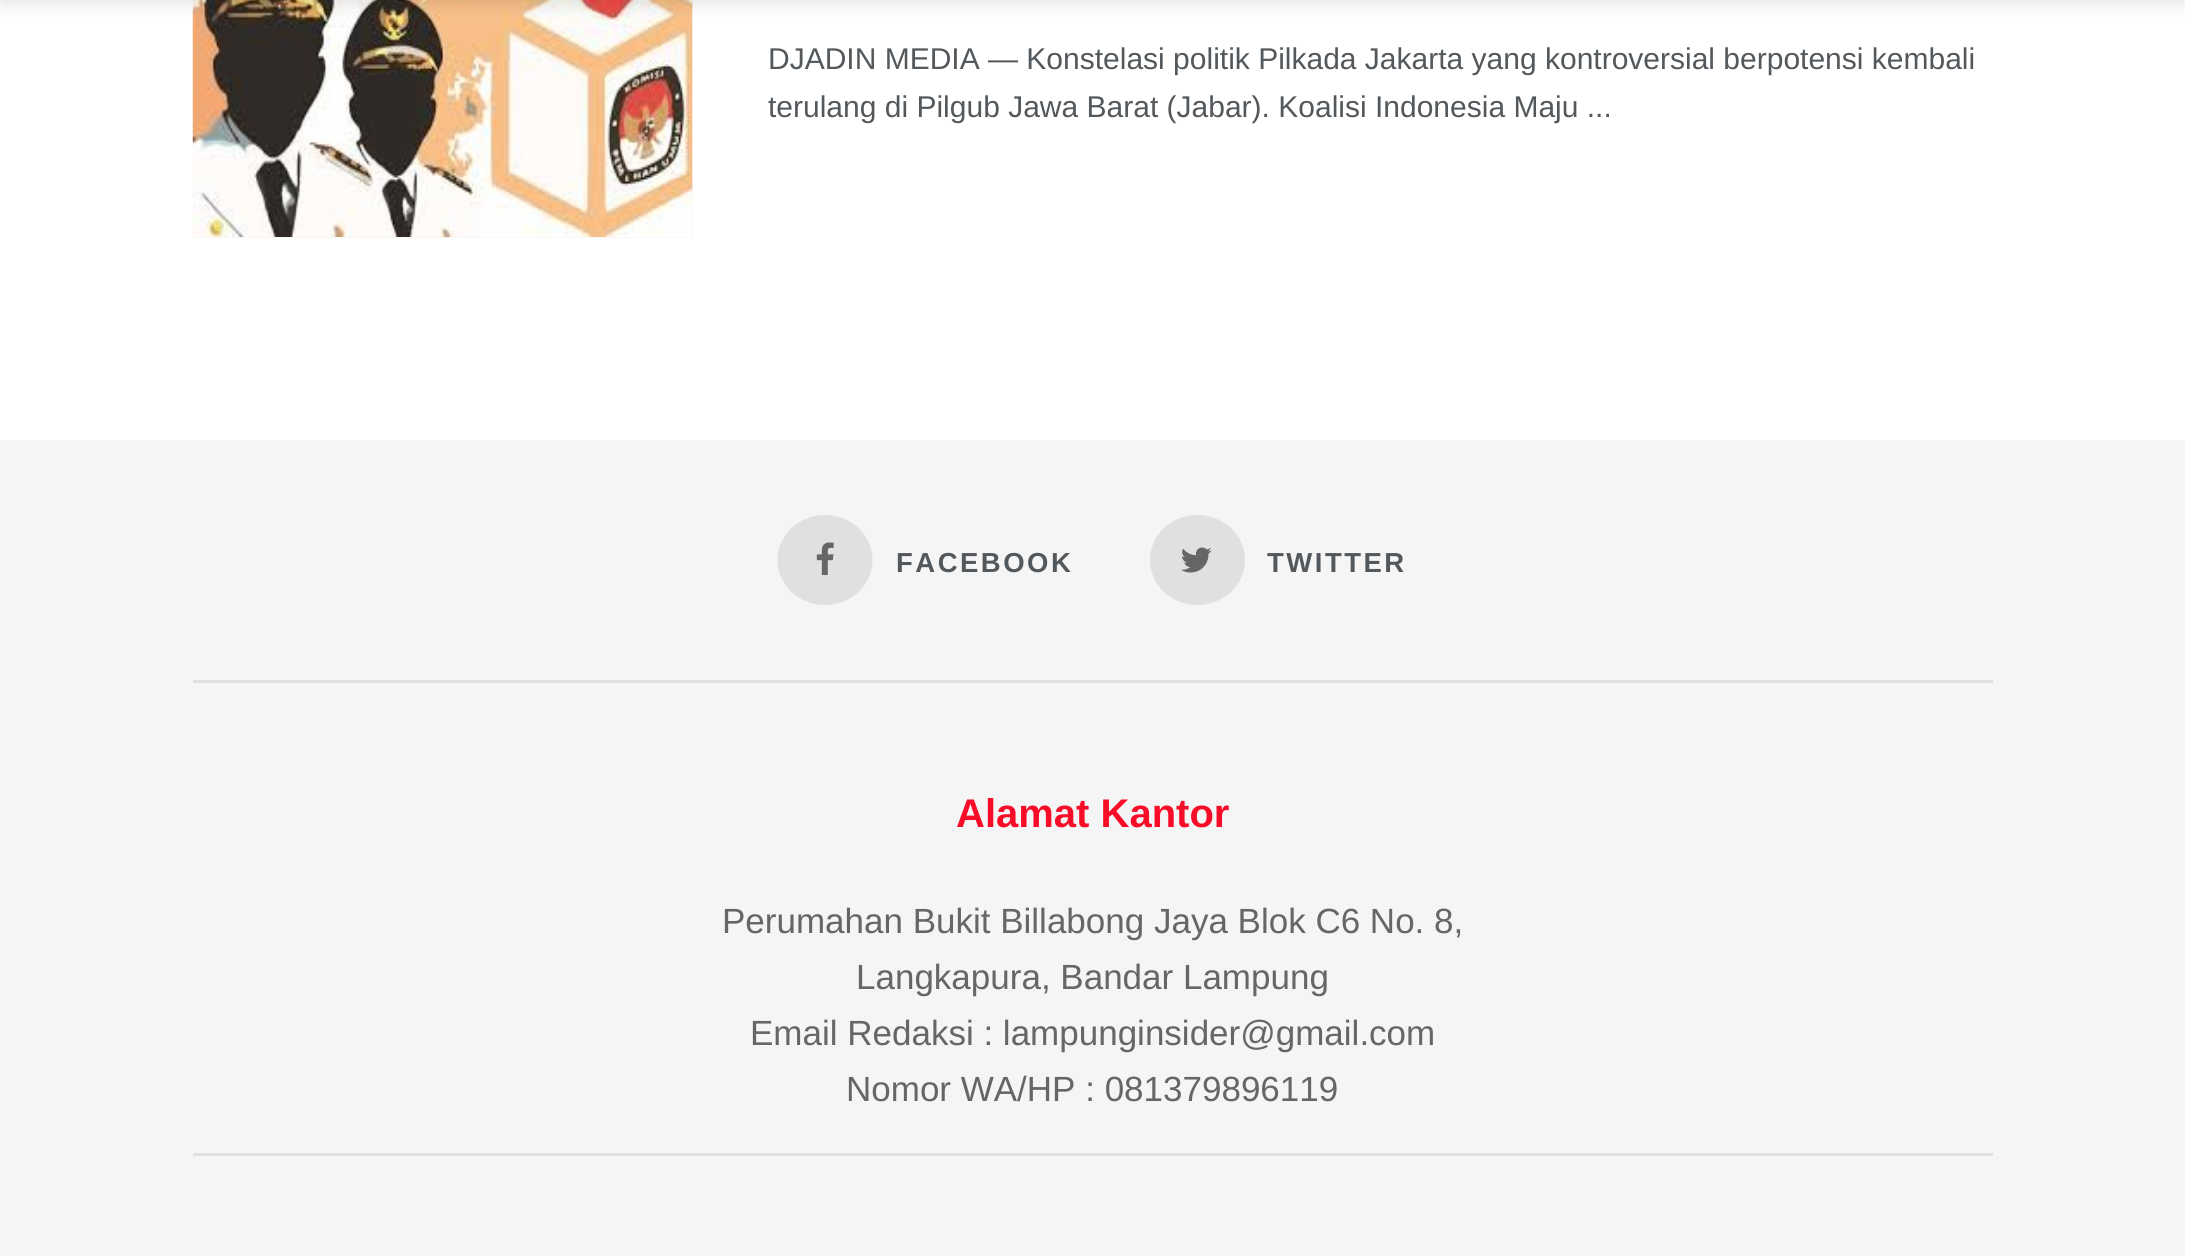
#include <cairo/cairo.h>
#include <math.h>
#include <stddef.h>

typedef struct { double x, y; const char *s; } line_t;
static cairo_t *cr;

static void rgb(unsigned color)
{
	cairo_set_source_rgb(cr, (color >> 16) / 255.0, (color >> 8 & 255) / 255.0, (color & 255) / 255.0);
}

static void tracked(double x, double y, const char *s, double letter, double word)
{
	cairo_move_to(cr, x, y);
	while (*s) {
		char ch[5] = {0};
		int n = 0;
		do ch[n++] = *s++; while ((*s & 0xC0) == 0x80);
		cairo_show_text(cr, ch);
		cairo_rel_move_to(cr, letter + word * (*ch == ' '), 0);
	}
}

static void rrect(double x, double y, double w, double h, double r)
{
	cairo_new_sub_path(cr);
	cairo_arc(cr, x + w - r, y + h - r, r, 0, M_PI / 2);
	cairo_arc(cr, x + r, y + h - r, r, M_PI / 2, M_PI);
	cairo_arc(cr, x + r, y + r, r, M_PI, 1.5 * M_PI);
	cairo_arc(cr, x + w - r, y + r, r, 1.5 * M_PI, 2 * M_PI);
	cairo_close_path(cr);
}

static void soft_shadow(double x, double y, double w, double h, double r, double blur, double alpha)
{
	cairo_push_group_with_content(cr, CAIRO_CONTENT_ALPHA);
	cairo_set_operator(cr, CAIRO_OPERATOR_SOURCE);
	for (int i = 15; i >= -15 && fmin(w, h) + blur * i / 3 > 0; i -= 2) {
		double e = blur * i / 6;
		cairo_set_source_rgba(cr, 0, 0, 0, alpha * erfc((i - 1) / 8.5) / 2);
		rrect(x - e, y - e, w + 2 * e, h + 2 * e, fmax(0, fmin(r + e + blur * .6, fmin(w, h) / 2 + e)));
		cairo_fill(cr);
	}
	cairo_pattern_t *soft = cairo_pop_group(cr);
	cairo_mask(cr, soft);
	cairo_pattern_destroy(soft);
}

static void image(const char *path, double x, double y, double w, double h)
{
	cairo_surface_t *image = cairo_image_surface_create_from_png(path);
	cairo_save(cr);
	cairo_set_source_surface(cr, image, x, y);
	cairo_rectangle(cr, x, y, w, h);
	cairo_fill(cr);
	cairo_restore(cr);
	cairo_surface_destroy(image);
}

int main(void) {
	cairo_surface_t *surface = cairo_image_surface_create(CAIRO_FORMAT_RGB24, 2185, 1256);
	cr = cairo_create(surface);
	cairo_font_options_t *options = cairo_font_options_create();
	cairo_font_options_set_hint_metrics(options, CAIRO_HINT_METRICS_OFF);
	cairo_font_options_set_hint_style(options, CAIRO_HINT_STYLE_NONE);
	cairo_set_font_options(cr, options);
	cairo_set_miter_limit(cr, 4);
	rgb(0xf5f5f5);
	cairo_paint(cr);
	rgb(0xffffff);
	cairo_rectangle(cr, 0, 0, 2185, 440);
	cairo_fill(cr);
	rgb(0xf7f7f7);
	cairo_rectangle(cr, 193, 0, 500, 238);
	cairo_fill(cr);
	image("img/1.png", 192, 0, 501, 237);
	rgb(0x000000);
	soft_shadow(0, -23, 2185, 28, 0, 7.5, 0.1);
	rgb(0xe0e0e0);
	cairo_rectangle(cr, 193, 680, 1800, 3);
	cairo_fill(cr);
	cairo_new_path(cr);
	cairo_move_to(cr, 825, 515);
	cairo_curve_to(cr, 851, 515, 872.5, 535, 872.5, 560);
	cairo_curve_to(cr, 872.5, 585, 851, 605, 825, 605);
	cairo_curve_to(cr, 799, 605, 777.5, 585, 777.5, 560);
	cairo_curve_to(cr, 777.5, 535, 799, 515, 825, 515);
	cairo_close_path(cr);
	cairo_fill(cr);
	image("img/2.png", 816, 542, 18, 33);
	cairo_new_path(cr);
	cairo_move_to(cr, 1197.5, 515);
	cairo_curve_to(cr, 1223.5, 515, 1245, 535, 1245, 560);
	cairo_curve_to(cr, 1245, 585, 1223.5, 605, 1197.5, 605);
	cairo_curve_to(cr, 1171.5, 605, 1150, 585, 1150, 560);
	cairo_curve_to(cr, 1150, 535, 1171.5, 515, 1197.5, 515);
	cairo_close_path(cr);
	cairo_fill(cr);
	image("img/3.png", 1181, 547, 31, 26);
	cairo_rectangle(cr, 193, 1153, 1800, 3);
	cairo_fill(cr);
	cairo_select_font_face(cr, "Liberation Sans", CAIRO_FONT_SLANT_NORMAL, CAIRO_FONT_WEIGHT_NORMAL);
	cairo_set_font_size(cr, 30);
	rgb(0x53585c);
	cairo_move_to(cr, 768, 69);
	cairo_show_text(cr, "DJADIN MEDIA — Konstelasi politik Pilkada Jakarta yang kontroversial berpotensi kembali");
	cairo_move_to(cr, 768, 117);
	cairo_show_text(cr, "terulang di Pilgub Jawa Barat (Jabar). Koalisi Indonesia Maju ...");
	cairo_select_font_face(cr, "Liberation Sans", CAIRO_FONT_SLANT_NORMAL, CAIRO_FONT_WEIGHT_BOLD);
	cairo_set_font_size(cr, 27.5);
	tracked(896, 572, "FACEBOOK", 2.5, 0);
	tracked(1267, 572, "TWITTER", 2.5, 0);
	cairo_set_font_size(cr, 40);
	rgb(0xf70d28);
	cairo_move_to(cr, 956, 827);
	cairo_show_text(cr, "Alamat Kantor");
	cairo_select_font_face(cr, "Liberation Sans", CAIRO_FONT_SLANT_NORMAL, CAIRO_FONT_WEIGHT_NORMAL);
	cairo_set_font_size(cr, 35);
	rgb(0x666666);
	{
		static const line_t items[] = {
			{722, 933, "Perumahan Bukit Billabong Jaya Blok C6 No. 8,"},
			{856, 989, "Langkapura, Bandar Lampung"},
			{750, 1045, "Email Redaksi : lampunginsider@gmail.com"},
			{846, 1101, "Nomor WA/HP : 081379896119"},
		};
		for (size_t i = 0; i < sizeof items / sizeof *items; i++) {
			cairo_move_to(cr, items[i].x, items[i].y);
			cairo_show_text(cr, items[i].s);
		}
	}
	cairo_surface_write_to_png(surface, "page.png");
	cairo_font_options_destroy(options);
	cairo_destroy(cr);
	cairo_surface_destroy(surface);
	return 0;
}
